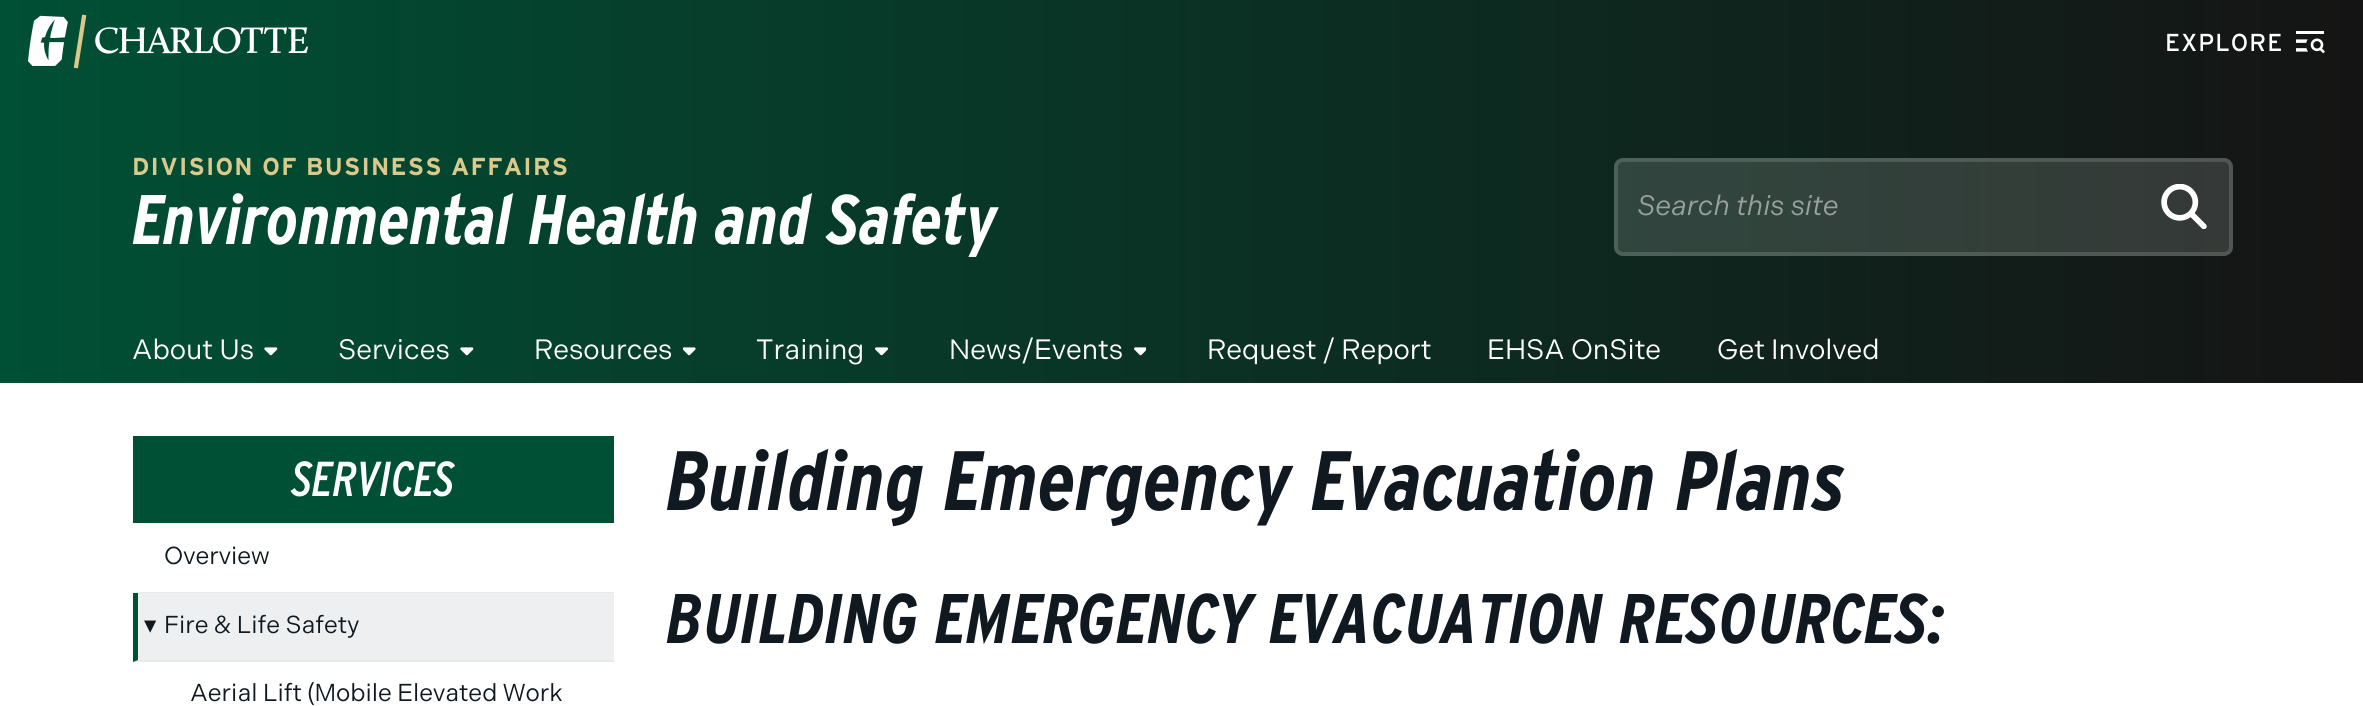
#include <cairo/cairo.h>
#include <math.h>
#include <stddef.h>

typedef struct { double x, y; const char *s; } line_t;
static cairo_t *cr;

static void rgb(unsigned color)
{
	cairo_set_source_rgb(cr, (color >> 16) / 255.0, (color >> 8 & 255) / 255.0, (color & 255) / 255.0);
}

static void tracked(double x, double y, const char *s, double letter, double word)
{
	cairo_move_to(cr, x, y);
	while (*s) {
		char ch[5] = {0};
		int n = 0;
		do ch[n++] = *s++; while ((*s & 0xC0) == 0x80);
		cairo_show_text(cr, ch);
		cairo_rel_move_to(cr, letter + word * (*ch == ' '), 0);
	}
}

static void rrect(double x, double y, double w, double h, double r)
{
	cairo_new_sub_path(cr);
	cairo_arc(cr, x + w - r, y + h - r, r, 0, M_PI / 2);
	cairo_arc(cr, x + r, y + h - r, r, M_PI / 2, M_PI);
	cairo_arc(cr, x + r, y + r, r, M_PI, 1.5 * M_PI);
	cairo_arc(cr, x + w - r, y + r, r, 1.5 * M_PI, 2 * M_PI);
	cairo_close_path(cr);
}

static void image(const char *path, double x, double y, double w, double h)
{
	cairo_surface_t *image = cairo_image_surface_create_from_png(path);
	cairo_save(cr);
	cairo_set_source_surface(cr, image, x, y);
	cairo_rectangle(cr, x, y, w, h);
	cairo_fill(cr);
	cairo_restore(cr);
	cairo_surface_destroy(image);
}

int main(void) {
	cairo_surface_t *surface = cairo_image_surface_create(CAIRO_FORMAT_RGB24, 2363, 706);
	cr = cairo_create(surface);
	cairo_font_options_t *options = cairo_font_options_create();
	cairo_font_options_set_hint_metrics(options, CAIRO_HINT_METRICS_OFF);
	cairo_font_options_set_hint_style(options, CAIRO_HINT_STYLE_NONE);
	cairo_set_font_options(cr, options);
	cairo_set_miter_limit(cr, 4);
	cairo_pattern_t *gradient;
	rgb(0xffffff);
	cairo_paint(cr);
	gradient = cairo_pattern_create_linear(0, 192, 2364, 192);
	cairo_pattern_add_color_stop_rgba(gradient, 0, 0, 0.314, 0.208, 1);
	cairo_pattern_add_color_stop_rgba(gradient, 1, 0.082, 0.078, 0.078, 1);
	cairo_set_source(cr, gradient);
	cairo_pattern_destroy(gradient);
	cairo_rectangle(cr, 0, 0, 2363, 383);
	cairo_fill(cr);
	image("img/1.png", 28, 14, 280, 55);
	image("img/2.png", 2296, 31, 29, 23);
	cairo_set_source_rgba(cr, 0.949, 0.965, 0.961, 0.15);
	rrect(1614, 158, 619, 98, 9);
	cairo_fill(cr);
	rrect(1616, 160, 615, 94, 7);
	cairo_set_line_width(cr, 4);
	cairo_stroke(cr);
	image("img/3.png", 2161, 184, 46, 45);
	image("img/4.png", 264, 347, 14, 9);
	image("img/5.png", 460, 347, 14, 9);
	image("img/6.png", 683, 347, 13, 9);
	image("img/7.png", 875, 347, 14, 9);
	image("img/8.png", 1134, 347, 12, 9);
	rgb(0x005035);
	cairo_rectangle(cr, 133, 436, 481, 87);
	cairo_fill(cr);
	rgb(0xe6e8e9);
	cairo_new_path(cr);
	cairo_move_to(cr, 614, 593);
	cairo_line_to(cr, 133, 593);
	cairo_line_to(cr, 138, 592);
	cairo_line_to(cr, 614, 592);
	cairo_close_path(cr);
	cairo_fill(cr);
	rgb(0xeeeff0);
	cairo_rectangle(cr, 133, 593, 481, 69);
	cairo_fill(cr);
	rgb(0xe6e8e9);
	cairo_new_path(cr);
	cairo_move_to(cr, 614, 662);
	cairo_line_to(cr, 133, 662);
	cairo_line_to(cr, 138, 660);
	cairo_line_to(cr, 614, 660);
	cairo_close_path(cr);
	cairo_fill(cr);
	rgb(0x005035);
	cairo_new_path(cr);
	cairo_move_to(cr, 133, 662);
	cairo_line_to(cr, 133, 593);
	cairo_line_to(cr, 138, 593);
	cairo_line_to(cr, 138, 660);
	cairo_close_path(cr);
	cairo_fill(cr);
	cairo_select_font_face(cr, "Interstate", CAIRO_FONT_SLANT_NORMAL, CAIRO_FONT_WEIGHT_NORMAL);
	cairo_set_font_size(cr, 24.5);
	rgb(0xffffff);
	tracked(2165, 51, "EXPLORE", 1, 0);
	cairo_select_font_face(cr, "Interstate", CAIRO_FONT_SLANT_NORMAL, CAIRO_FONT_WEIGHT_BOLD);
	rgb(0xdac98a);
	tracked(132, 175, "DIVISION OF BUSINESS AFFAIRS", 1.25, 0);
	cairo_select_font_face(cr, "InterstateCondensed", CAIRO_FONT_SLANT_ITALIC, CAIRO_FONT_WEIGHT_BOLD);
	cairo_set_font_size(cr, 70);
	rgb(0xffffff);
	cairo_move_to(cr, 132, 244);
	cairo_show_text(cr, "Environmental Health and Safety");
	cairo_select_font_face(cr, "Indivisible", CAIRO_FONT_SLANT_ITALIC, CAIRO_FONT_WEIGHT_NORMAL);
	cairo_set_font_size(cr, 28);
	rgb(0x98a19e);
	cairo_move_to(cr, 1637, 215);
	cairo_show_text(cr, "Search this site");
	cairo_select_font_face(cr, "Indivisible", CAIRO_FONT_SLANT_NORMAL, CAIRO_FONT_WEIGHT_NORMAL);
	rgb(0xffffff);
	{
		static const line_t items[] = {
			{132, 359, "About Us"},
			{338, 359, "Services"},
			{534, 359, "Resources"},
			{756, 359, "Training"},
			{949, 359, "News/Events"},
			{1207, 359, "Request / Report"},
			{1487, 359, "EHSA OnSite"},
			{1717, 359, "Get Involved"},
		};
		for (size_t i = 0; i < sizeof items / sizeof *items; i++) {
			cairo_move_to(cr, items[i].x, items[i].y);
			cairo_show_text(cr, items[i].s);
		}
	}
	cairo_select_font_face(cr, "InterstateCondensed", CAIRO_FONT_SLANT_ITALIC, CAIRO_FONT_WEIGHT_NORMAL);
	cairo_set_font_size(cr, 49);
	cairo_move_to(cr, 292, 496);
	cairo_show_text(cr, "SERVICES");
	cairo_select_font_face(cr, "Indivisible", CAIRO_FONT_SLANT_NORMAL, CAIRO_FONT_WEIGHT_NORMAL);
	cairo_set_font_size(cr, 24.5);
	rgb(0x101820);
	cairo_move_to(cr, 164, 564);
	cairo_show_text(cr, "Overview");
	cairo_select_font_face(cr, "DejaVu Sans", CAIRO_FONT_SLANT_NORMAL, CAIRO_FONT_WEIGHT_NORMAL);
	cairo_move_to(cr, 144, 633);
	cairo_show_text(cr, "▾");
	cairo_select_font_face(cr, "Indivisible", CAIRO_FONT_SLANT_NORMAL, CAIRO_FONT_WEIGHT_NORMAL);
	cairo_move_to(cr, 164, 633);
	cairo_show_text(cr, "Fire & Life Safety");
	cairo_move_to(cr, 190, 701);
	cairo_show_text(cr, "Aerial Lift (Mobile Elevated Work");
	cairo_select_font_face(cr, "InterstateCondensed", CAIRO_FONT_SLANT_ITALIC, CAIRO_FONT_WEIGHT_BOLD);
	cairo_set_font_size(cr, 84);
	cairo_move_to(cr, 666, 510);
	cairo_show_text(cr, "Building Emergency Evacuation Plans");
	cairo_set_font_size(cr, 70);
	cairo_move_to(cr, 666, 643);
	cairo_show_text(cr, "BUILDING EMERGENCY EVACUATION RESOURCES:");
	cairo_surface_write_to_png(surface, "page.png");
	cairo_font_options_destroy(options);
	cairo_destroy(cr);
	cairo_surface_destroy(surface);
	return 0;
}
